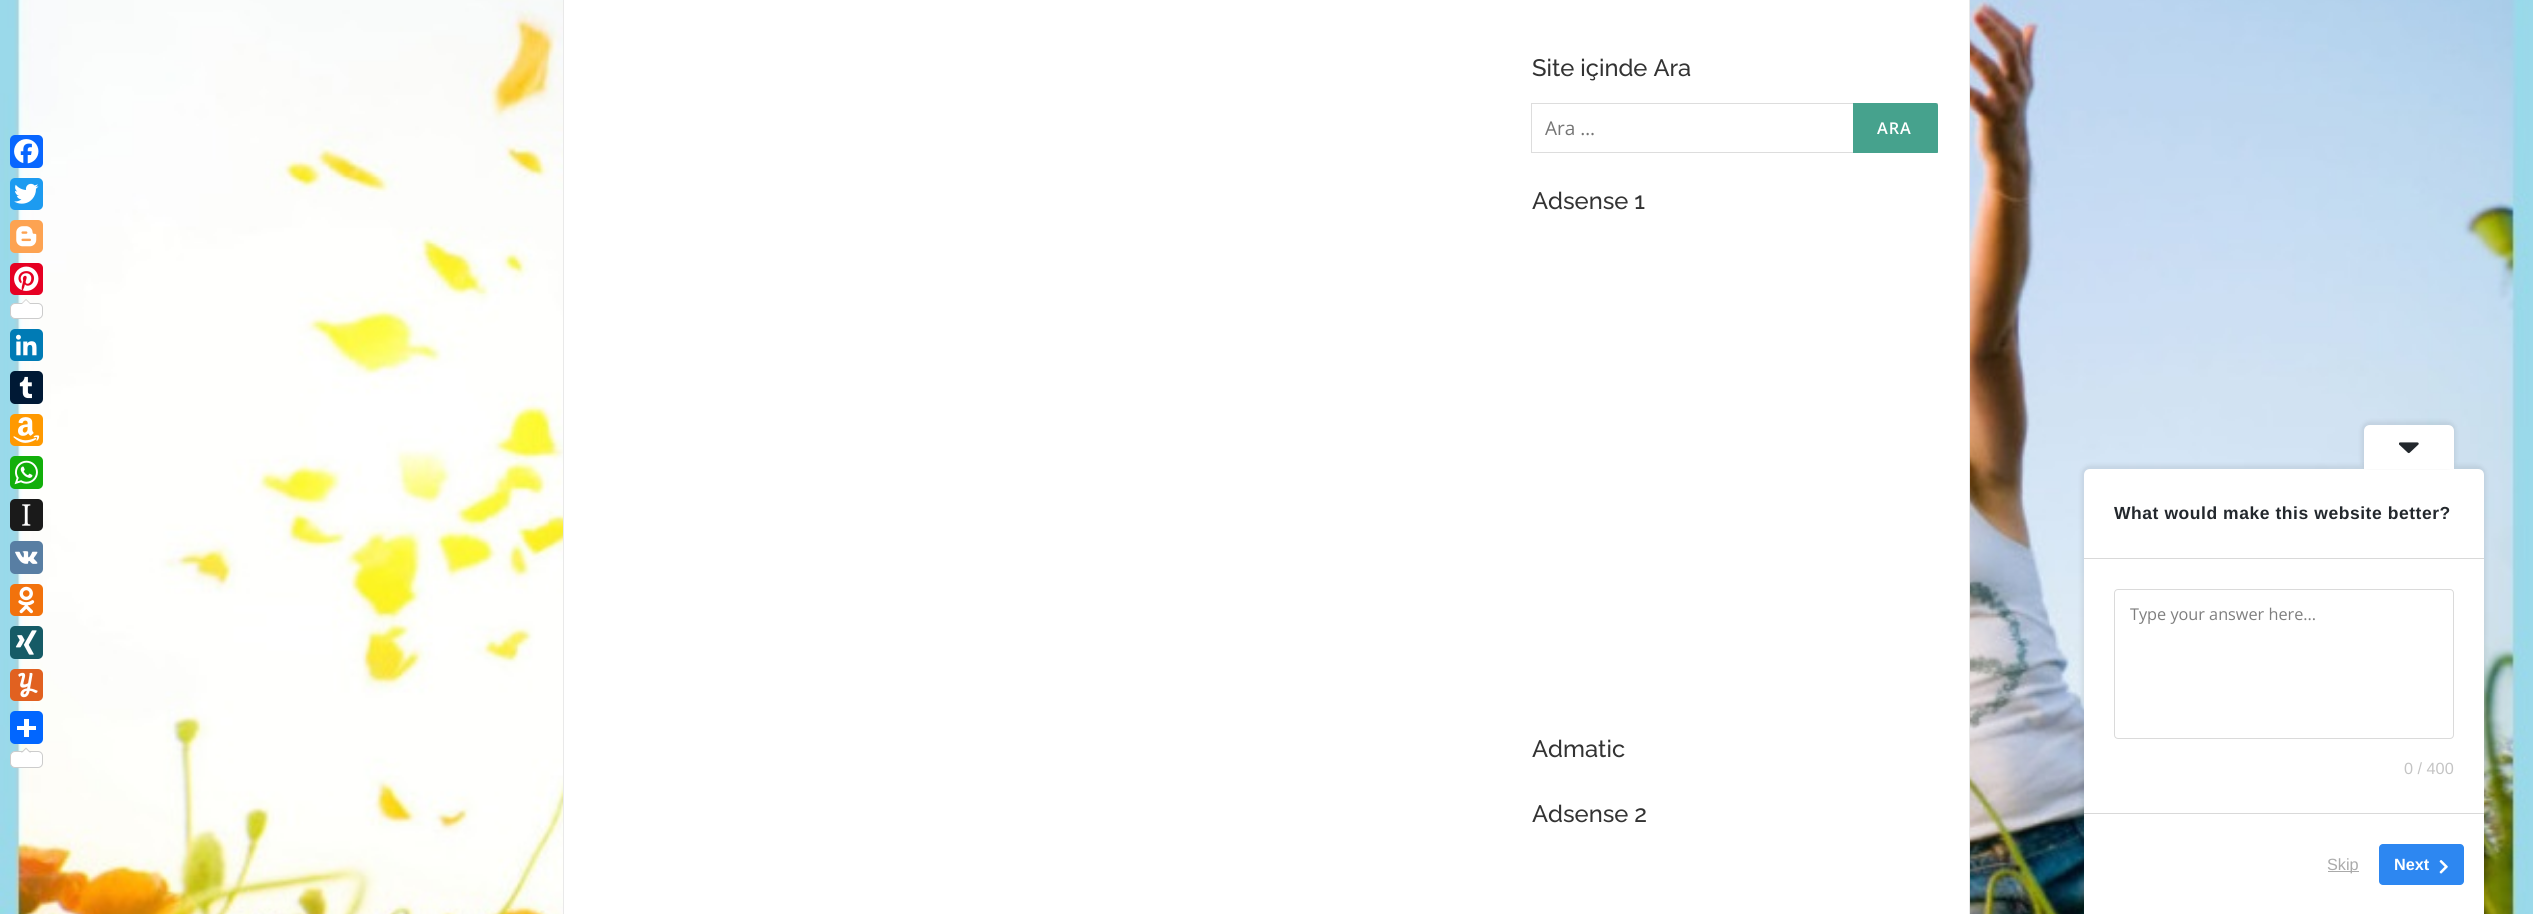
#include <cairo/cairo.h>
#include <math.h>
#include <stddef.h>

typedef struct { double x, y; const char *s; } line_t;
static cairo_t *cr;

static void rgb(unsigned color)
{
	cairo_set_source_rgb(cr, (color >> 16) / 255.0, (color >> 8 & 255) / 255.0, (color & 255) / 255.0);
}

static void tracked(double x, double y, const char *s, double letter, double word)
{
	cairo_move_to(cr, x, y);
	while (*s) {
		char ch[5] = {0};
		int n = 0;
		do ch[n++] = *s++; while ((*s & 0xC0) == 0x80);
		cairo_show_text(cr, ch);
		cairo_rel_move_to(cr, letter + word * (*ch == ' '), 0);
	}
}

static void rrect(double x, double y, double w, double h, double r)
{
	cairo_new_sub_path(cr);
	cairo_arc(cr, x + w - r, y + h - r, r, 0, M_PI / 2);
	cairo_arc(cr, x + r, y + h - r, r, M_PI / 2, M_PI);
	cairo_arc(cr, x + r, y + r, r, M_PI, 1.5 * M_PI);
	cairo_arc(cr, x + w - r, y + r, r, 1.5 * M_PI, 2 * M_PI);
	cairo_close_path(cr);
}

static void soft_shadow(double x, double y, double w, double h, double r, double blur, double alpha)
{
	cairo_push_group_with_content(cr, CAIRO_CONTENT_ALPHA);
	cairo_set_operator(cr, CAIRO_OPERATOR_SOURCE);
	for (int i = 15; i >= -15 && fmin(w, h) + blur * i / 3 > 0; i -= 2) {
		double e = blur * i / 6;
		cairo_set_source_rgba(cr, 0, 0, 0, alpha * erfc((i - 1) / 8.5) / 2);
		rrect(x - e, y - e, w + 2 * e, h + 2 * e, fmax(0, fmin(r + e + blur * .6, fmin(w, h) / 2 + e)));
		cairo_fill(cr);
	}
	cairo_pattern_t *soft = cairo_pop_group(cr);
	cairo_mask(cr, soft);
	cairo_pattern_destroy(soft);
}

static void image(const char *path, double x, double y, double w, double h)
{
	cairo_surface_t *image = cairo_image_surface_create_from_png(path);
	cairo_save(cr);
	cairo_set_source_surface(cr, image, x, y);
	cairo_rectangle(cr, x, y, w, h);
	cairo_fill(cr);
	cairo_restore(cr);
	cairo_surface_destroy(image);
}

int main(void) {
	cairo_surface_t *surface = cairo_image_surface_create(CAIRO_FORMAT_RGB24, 2533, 914);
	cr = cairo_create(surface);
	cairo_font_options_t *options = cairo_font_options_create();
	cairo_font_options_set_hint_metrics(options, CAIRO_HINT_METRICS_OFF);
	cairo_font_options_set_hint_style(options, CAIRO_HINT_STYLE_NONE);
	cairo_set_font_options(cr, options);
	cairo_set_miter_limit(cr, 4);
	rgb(0xffffff);
	cairo_paint(cr);
	image("img/1.png", 0, 0, 2533, 914);
	rgb(0x0866ff);
	rrect(10, 135, 33, 33, 5);
	cairo_fill(cr);
	image("img/2.png", 14, 139, 25, 25);
	rgb(0x1d9bf0);
	rrect(10, 178, 33, 32, 5);
	cairo_fill(cr);
	image("img/3.png", 14, 183, 25, 21);
	rgb(0xfda352);
	rrect(10, 220, 33, 33, 5);
	cairo_fill(cr);
	image("img/4.png", 16, 226, 21, 21);
	rgb(0xe60023);
	rrect(10, 263, 33, 32, 5);
	cairo_fill(cr);
	image("img/5.png", 14, 266, 25, 25);
	rgb(0xffffff);
	rrect(10.5, 303.5, 32, 15, 4.5);
	cairo_fill_preserve(cr);
	rgb(0xcccccc);
	cairo_set_line_width(cr, 1);
	cairo_stroke(cr);
	cairo_new_path(cr);
	cairo_move_to(cr, 31, 304);
	cairo_line_to(cr, 21, 304);
	cairo_line_to(cr, 26, 299);
	cairo_close_path(cr);
	cairo_fill(cr);
	rgb(0xffffff);
	cairo_new_path(cr);
	cairo_move_to(cr, 31, 305);
	cairo_line_to(cr, 21, 305);
	cairo_line_to(cr, 26, 300);
	cairo_close_path(cr);
	cairo_fill(cr);
	rgb(0x007bb5);
	rrect(10, 329, 33, 32, 5);
	cairo_fill(cr);
	image("img/6.png", 16, 334, 21, 22);
	rgb(0x001935);
	rrect(10, 371, 33, 33, 5);
	cairo_fill(cr);
	image("img/7.png", 19, 376, 13, 23);
	rgb(0xff9900);
	rrect(10, 414, 33, 32, 5);
	cairo_fill(cr);
	image("img/8.png", 13, 417, 27, 26);
	rgb(0x12af0a);
	rrect(10, 456, 33, 33, 5);
	cairo_fill(cr);
	image("img/9.png", 14, 460, 24, 25);
	rgb(0x1a1a1a);
	rrect(10, 499, 33, 32, 5);
	cairo_fill(cr);
	image("img/10.png", 22, 504, 9, 22);
	rgb(0x587ea3);
	rrect(10, 541, 33, 33, 5);
	cairo_fill(cr);
	image("img/11.png", 15, 551, 23, 13);
	rgb(0xf2720c);
	rrect(10, 584, 33, 32, 5);
	cairo_fill(cr);
	image("img/12.png", 18, 586, 17, 28);
	rgb(0x165b66);
	rrect(10, 626, 33, 33, 5);
	cairo_fill(cr);
	image("img/13.png", 15, 630, 22, 25);
	rgb(0xe16120);
	rrect(10, 669, 33, 32, 5);
	cairo_fill(cr);
	image("img/14.png", 18, 672, 20, 26);
	rgb(0x0166ff);
	rrect(10, 711, 33, 33, 5);
	cairo_fill(cr);
	rgb(0xffffff);
	cairo_rectangle(cr, 24, 719, 5, 18);
	cairo_fill(cr);
	cairo_rectangle(cr, 17, 726, 19, 4);
	cairo_fill(cr);
	rrect(10.5, 751.5, 32, 16, 4.5);
	cairo_fill_preserve(cr);
	rgb(0xcccccc);
	cairo_stroke(cr);
	cairo_new_path(cr);
	cairo_move_to(cr, 31, 752.5);
	cairo_line_to(cr, 21, 752.5);
	cairo_line_to(cr, 26, 747.5);
	cairo_close_path(cr);
	cairo_fill(cr);
	rgb(0xffffff);
	cairo_new_path(cr);
	cairo_move_to(cr, 31, 754);
	cairo_line_to(cr, 21, 754);
	cairo_line_to(cr, 26, 749);
	cairo_close_path(cr);
	cairo_fill(cr);
	cairo_rectangle(cr, 563.5, -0.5, 1406, 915);
	cairo_fill_preserve(cr);
	rgb(0xe9e9e9);
	cairo_stroke(cr);
	cairo_rectangle(cr, 1531.5, 103.5, 406, 49);
	rgb(0xdddddd);
	cairo_stroke(cr);
	cairo_save(cr);
	cairo_rectangle(cr, 1531, 103, 407, 50);
	cairo_clip(cr);
	rgb(0x46a28d);
	cairo_new_path(cr);
	cairo_move_to(cr, 1853, 103);
	cairo_line_to(cr, 1935.5, 103);
	cairo_curve_to(cr, 1937, 103, 1938, 104, 1938, 105.5);
	cairo_line_to(cr, 1938, 151.5);
	cairo_curve_to(cr, 1938, 153, 1937, 154, 1935.5, 154);
	cairo_line_to(cr, 1853, 154);
	cairo_close_path(cr);
	cairo_fill(cr);
	cairo_restore(cr);
	rgb(0x000000);
	soft_shadow(2081, 465, 405, 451, 9, 2, 0.07);
	rgb(0xffffff);
	cairo_new_path(cr);
	cairo_move_to(cr, 2090, 469);
	cairo_line_to(cr, 2478, 469);
	cairo_curve_to(cr, 2481.5, 469, 2484, 471.5, 2484, 475);
	cairo_line_to(cr, 2484, 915);
	cairo_line_to(cr, 2084, 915);
	cairo_line_to(cr, 2084, 475);
	cairo_curve_to(cr, 2084, 471.5, 2086.5, 469, 2090, 469);
	cairo_close_path(cr);
	cairo_fill(cr);
	cairo_save(cr);
	cairo_new_path(cr);
	cairo_move_to(cr, 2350, 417);
	cairo_line_to(cr, 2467, 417);
	cairo_line_to(cr, 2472, 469.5);
	cairo_line_to(cr, 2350, 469.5);
	cairo_close_path(cr);
	cairo_clip(cr);
	rgb(0x000000);
	soft_shadow(2361, 421, 95, 49, 9, 2, 0.07);
	cairo_restore(cr);
	cairo_new_path(cr);
	cairo_move_to(cr, 2370, 425);
	cairo_line_to(cr, 2448, 425);
	cairo_curve_to(cr, 2451.5, 425, 2454, 427.5, 2454, 431);
	cairo_line_to(cr, 2454, 469);
	cairo_line_to(cr, 2364, 469);
	cairo_line_to(cr, 2364, 431);
	cairo_curve_to(cr, 2364, 427.5, 2366.5, 425, 2370, 425);
	cairo_close_path(cr);
	cairo_fill(cr);
	image("img/15.png", 2399, 442, 20, 12);
	rgb(0xd9d9d9);
	cairo_rectangle(cr, 2084, 558, 400, 1);
	cairo_fill(cr);
	cairo_rectangle(cr, 2084, 813, 400, 1);
	cairo_fill(cr);
	rrect(2114.5, 589.5, 339, 149, 3.5);
	rgb(0xdadada);
	cairo_stroke(cr);
	rgb(0xaaaaaa);
	cairo_rectangle(cr, 2328, 871, 31, 1);
	cairo_fill(cr);
	rgb(0x2d87f1);
	rrect(2379, 844, 85, 41, 4);
	cairo_fill(cr);
	image("img/16.png", 2439, 860, 9, 14);
	cairo_select_font_face(cr, "Raleway Medium", CAIRO_FONT_SLANT_NORMAL, CAIRO_FONT_WEIGHT_NORMAL);
	cairo_set_font_size(cr, 23.75);
	rgb(0x333333);
	cairo_move_to(cr, 1532, 76);
	cairo_show_text(cr, "Site içinde Ara");
	cairo_select_font_face(cr, "Open Sans", CAIRO_FONT_SLANT_NORMAL, CAIRO_FONT_WEIGHT_NORMAL);
	cairo_set_font_size(cr, 19);
	rgb(0x757575);
	cairo_move_to(cr, 1545, 135);
	cairo_show_text(cr, "Ara …");
	cairo_select_font_face(cr, "Open Sans SemiBold", CAIRO_FONT_SLANT_NORMAL, CAIRO_FONT_WEIGHT_NORMAL);
	cairo_set_font_size(cr, 16.25);
	rgb(0xffffff);
	tracked(1877, 134, "ARA", 1, 0);
	cairo_select_font_face(cr, "Raleway Medium", CAIRO_FONT_SLANT_NORMAL, CAIRO_FONT_WEIGHT_NORMAL);
	cairo_set_font_size(cr, 23.75);
	rgb(0x333333);
	{
		static const line_t items[] = {
			{1532, 209, "Adsense 1"},
			{1532, 757, "Admatic"},
			{1532, 822, "Adsense 2"},
		};
		for (size_t i = 0; i < sizeof items / sizeof *items; i++) {
			cairo_move_to(cr, items[i].x, items[i].y);
			cairo_show_text(cr, items[i].s);
		}
	}
	cairo_select_font_face(cr, "Liberation Sans", CAIRO_FONT_SLANT_NORMAL, CAIRO_FONT_WEIGHT_BOLD);
	cairo_set_font_size(cr, 17.5);
	rgb(0x23282d);
	tracked(2114, 519, "What would make this website better?", 0.55, 0);
	cairo_select_font_face(cr, "Open Sans", CAIRO_FONT_SLANT_NORMAL, CAIRO_FONT_WEIGHT_NORMAL);
	cairo_set_font_size(cr, 16.25);
	rgb(0x7e7e7e);
	cairo_move_to(cr, 2130, 620);
	cairo_show_text(cr, "Type your answer here...");
	cairo_select_font_face(cr, "Liberation Sans", CAIRO_FONT_SLANT_NORMAL, CAIRO_FONT_WEIGHT_NORMAL);
	rgb(0xc4c4c4);
	cairo_move_to(cr, 2404, 774);
	cairo_show_text(cr, "0 / 400");
	rgb(0xaaaaaa);
	cairo_move_to(cr, 2327, 870);
	cairo_show_text(cr, "Skip");
	cairo_select_font_face(cr, "Liberation Sans", CAIRO_FONT_SLANT_NORMAL, CAIRO_FONT_WEIGHT_BOLD);
	rgb(0xffffff);
	cairo_move_to(cr, 2394, 870);
	cairo_show_text(cr, "Next");
	cairo_surface_write_to_png(surface, "page.png");
	cairo_font_options_destroy(options);
	cairo_destroy(cr);
	cairo_surface_destroy(surface);
	return 0;
}
